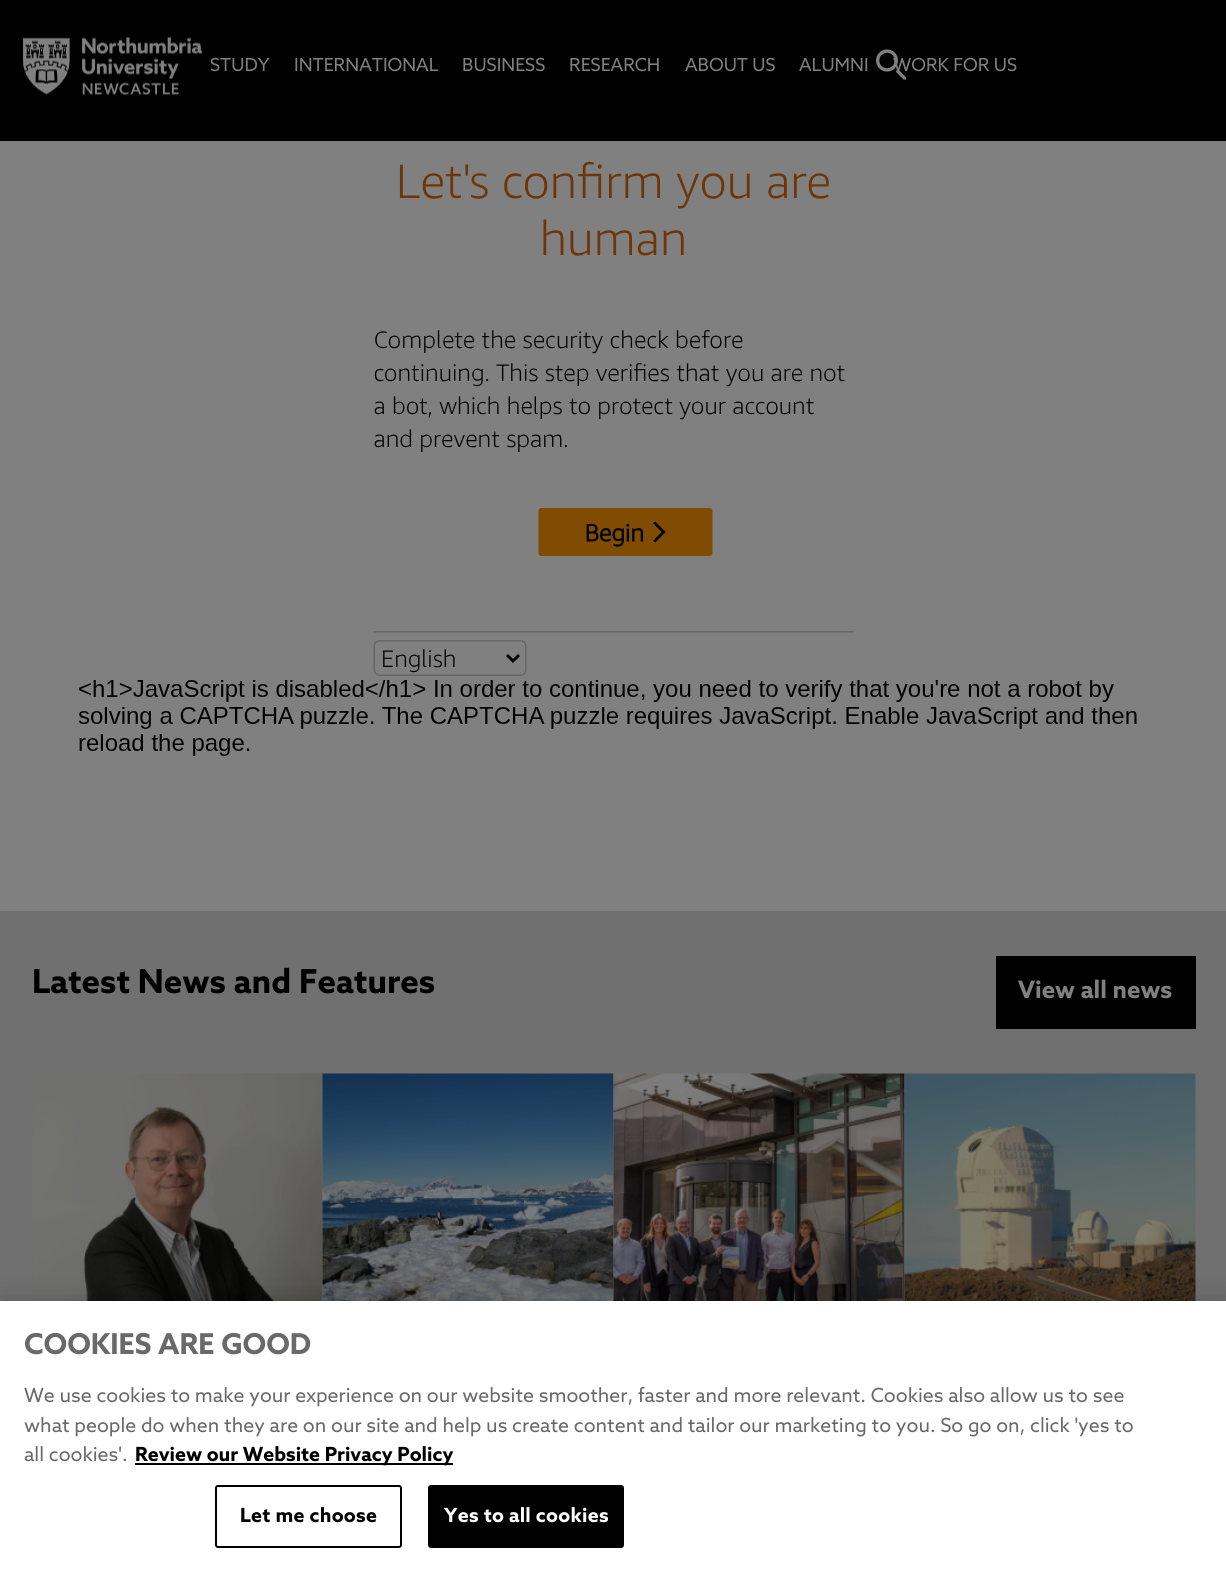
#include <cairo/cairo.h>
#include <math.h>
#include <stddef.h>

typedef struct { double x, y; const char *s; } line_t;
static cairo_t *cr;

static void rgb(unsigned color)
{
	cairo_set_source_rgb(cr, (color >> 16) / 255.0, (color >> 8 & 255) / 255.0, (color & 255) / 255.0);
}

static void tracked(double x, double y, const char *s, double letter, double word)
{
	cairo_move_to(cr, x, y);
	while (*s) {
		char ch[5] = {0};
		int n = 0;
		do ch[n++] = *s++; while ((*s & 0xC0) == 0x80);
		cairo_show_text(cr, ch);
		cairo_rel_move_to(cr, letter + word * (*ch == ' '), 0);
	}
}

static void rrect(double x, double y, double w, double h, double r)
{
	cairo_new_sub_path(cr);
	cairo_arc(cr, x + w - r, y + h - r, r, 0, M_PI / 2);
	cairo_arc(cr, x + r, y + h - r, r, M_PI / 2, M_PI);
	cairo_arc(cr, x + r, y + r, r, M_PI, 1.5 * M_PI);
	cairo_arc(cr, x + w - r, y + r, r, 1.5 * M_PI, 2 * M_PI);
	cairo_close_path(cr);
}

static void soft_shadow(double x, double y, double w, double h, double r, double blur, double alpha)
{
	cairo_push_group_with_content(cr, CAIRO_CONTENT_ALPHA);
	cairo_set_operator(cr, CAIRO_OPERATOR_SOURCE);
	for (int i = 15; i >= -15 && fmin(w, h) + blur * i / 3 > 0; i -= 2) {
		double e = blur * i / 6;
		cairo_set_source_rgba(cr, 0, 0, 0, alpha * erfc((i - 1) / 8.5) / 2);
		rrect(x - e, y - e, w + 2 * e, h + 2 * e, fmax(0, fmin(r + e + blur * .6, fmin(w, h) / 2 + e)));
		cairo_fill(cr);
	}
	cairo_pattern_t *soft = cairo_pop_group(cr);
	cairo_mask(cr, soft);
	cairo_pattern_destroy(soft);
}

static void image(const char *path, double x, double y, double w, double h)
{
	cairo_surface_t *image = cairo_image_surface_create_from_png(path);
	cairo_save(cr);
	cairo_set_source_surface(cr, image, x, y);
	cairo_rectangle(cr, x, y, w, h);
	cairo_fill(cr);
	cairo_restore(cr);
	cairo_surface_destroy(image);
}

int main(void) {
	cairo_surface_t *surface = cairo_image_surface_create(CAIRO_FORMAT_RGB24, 1226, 1572);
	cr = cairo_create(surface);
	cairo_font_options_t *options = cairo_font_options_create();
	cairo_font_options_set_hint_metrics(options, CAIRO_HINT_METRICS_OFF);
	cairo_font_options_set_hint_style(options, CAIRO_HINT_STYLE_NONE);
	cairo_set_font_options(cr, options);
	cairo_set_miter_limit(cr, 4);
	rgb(0x808080);
	cairo_paint(cr);
	rgb(0x000000);
	cairo_rectangle(cr, 0, 0, 1226, 141);
	cairo_fill(cr);
	image("img/1.png", 23, 37, 179, 58);
	image("img/3.png", 78, 161, 1059, 595);
	rgb(0x707070);
	cairo_rectangle(cr, 0, 911, 1226, 390);
	cairo_fill(cr);
	rgb(0x000000);
	cairo_rectangle(cr, 996, 956, 200, 73);
	cairo_fill(cr);
	image("img/4.png", 31, 1073, 292, 228);
	image("img/5.png", 322, 1073, 292, 228);
	image("img/6.png", 613, 1073, 292, 228);
	image("img/7.png", 904, 1073, 292, 228);
	rgb(0x000000);
	soft_shadow(0, 1301, 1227, 271, 0, 13.5, 0.2);
	rgb(0xffffff);
	cairo_rectangle(cr, 0, 1301, 1226, 271);
	cairo_fill(cr);
	rgb(0x000000);
	cairo_rectangle(cr, 135, 1463, 318, 2);
	cairo_fill(cr);
	rrect(216, 1486, 185, 61, 2);
	cairo_stroke(cr);
	rrect(429, 1486, 194, 61, 2);
	cairo_fill_preserve(cr);
	cairo_stroke(cr);
	cairo_select_font_face(cr, "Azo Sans", CAIRO_FONT_SLANT_NORMAL, CAIRO_FONT_WEIGHT_NORMAL);
	cairo_set_font_size(cr, 18);
	rgb(0x808080);
	{
		static const line_t items[] = {
			{210, 71, "STUDY"},
			{294, 71, "INTERNATIONAL"},
			{462, 71, "BUSINESS"},
			{569, 71, "RESEARCH"},
			{685, 71, "ABOUT US"},
			{799, 71, "ALUMNI"},
			{893, 71, "WORK FOR US"},
		};
		for (size_t i = 0; i < sizeof items / sizeof *items; i++) {
			cairo_move_to(cr, items[i].x, items[i].y);
			cairo_show_text(cr, items[i].s);
		}
	}
	image("img/2.png", 876, 49, 30, 31);
	cairo_select_font_face(cr, "Azo Sans", CAIRO_FONT_SLANT_NORMAL, CAIRO_FONT_WEIGHT_BOLD);
	cairo_set_font_size(cr, 33);
	rgb(0x000000);
	cairo_move_to(cr, 32, 993);
	cairo_show_text(cr, "Latest News and Features");
	cairo_set_font_size(cr, 24);
	rgb(0x808080);
	cairo_move_to(cr, 1018, 998);
	cairo_show_text(cr, "View all news");
	cairo_set_font_size(cr, 28.75);
	rgb(0x696969);
	cairo_move_to(cr, 24, 1354);
	cairo_show_text(cr, "COOKIES ARE GOOD");
	cairo_select_font_face(cr, "Azo Sans", CAIRO_FONT_SLANT_NORMAL, CAIRO_FONT_WEIGHT_NORMAL);
	cairo_set_font_size(cr, 19.5);
	{
		static const line_t items[] = {
			{24, 1402, "We use cookies to make your experience on our website smoother, faster and more relevant. Cookies also allow us to see"},
			{24, 1432, "what people do when they are on our site and help us create content and tailor our marketing to you. So go on, click 'yes to"},
			{24, 1461, "all cookies'."},
		};
		for (size_t i = 0; i < sizeof items / sizeof *items; i++) {
			cairo_move_to(cr, items[i].x, items[i].y);
			cairo_show_text(cr, items[i].s);
		}
	}
	cairo_select_font_face(cr, "Azo Sans", CAIRO_FONT_SLANT_NORMAL, CAIRO_FONT_WEIGHT_BOLD);
	rgb(0x000000);
	cairo_move_to(cr, 135, 1461);
	cairo_show_text(cr, "Review our Website Privacy Policy");
	tracked(240, 1522, "Let me choose", 0.25, 0);
	rgb(0xffffff);
	tracked(444, 1522, "Yes to all cookies", 0.25, 0);
	cairo_surface_write_to_png(surface, "page.png");
	cairo_font_options_destroy(options);
	cairo_destroy(cr);
	cairo_surface_destroy(surface);
	return 0;
}
